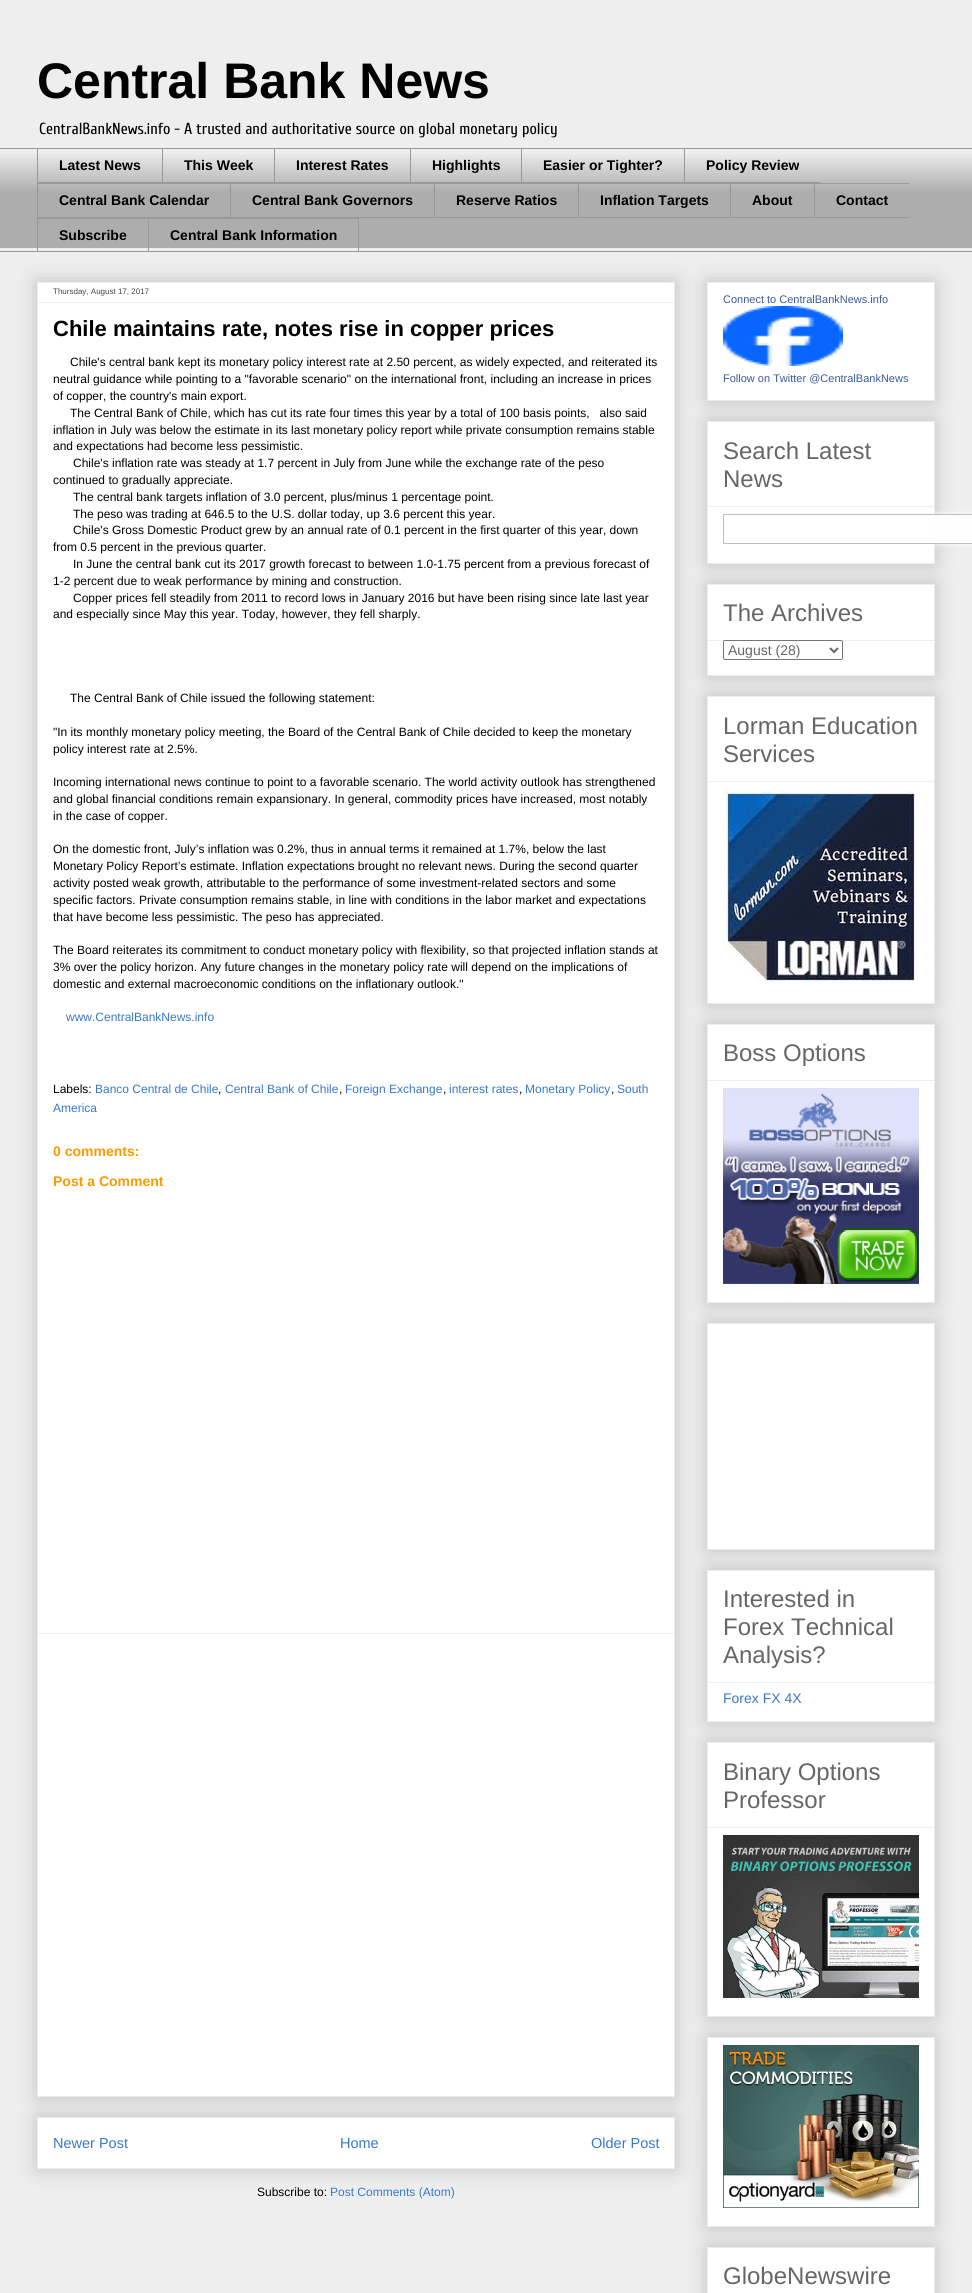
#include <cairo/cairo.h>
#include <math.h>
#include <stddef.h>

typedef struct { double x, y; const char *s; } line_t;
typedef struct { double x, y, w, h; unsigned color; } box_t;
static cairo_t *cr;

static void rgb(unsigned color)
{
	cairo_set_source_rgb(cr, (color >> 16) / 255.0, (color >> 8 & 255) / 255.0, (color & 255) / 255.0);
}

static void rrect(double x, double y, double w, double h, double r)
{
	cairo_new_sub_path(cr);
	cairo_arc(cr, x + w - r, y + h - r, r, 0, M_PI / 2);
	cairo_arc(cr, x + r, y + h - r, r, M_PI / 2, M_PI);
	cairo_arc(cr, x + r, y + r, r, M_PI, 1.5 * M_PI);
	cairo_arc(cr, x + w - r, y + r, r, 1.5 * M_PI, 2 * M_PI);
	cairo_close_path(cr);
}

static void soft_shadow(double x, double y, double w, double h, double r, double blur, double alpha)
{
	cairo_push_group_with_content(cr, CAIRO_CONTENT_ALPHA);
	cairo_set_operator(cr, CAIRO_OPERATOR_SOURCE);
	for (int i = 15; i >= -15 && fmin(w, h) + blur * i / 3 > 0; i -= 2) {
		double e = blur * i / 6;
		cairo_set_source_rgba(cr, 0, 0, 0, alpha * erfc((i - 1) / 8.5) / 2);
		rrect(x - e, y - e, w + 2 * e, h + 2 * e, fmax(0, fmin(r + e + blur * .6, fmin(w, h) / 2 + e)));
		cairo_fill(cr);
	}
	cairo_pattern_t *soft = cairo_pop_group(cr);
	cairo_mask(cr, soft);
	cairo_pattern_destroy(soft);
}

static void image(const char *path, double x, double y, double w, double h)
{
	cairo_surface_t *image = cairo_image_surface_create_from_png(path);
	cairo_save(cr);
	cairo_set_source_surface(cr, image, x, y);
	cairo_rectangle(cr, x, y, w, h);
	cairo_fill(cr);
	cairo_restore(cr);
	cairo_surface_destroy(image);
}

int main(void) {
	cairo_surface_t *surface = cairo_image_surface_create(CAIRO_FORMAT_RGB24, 972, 2293);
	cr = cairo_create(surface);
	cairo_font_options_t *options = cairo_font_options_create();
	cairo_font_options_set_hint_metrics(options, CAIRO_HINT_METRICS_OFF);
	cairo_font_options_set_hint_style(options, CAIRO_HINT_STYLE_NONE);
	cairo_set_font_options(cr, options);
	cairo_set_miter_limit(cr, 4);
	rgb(0xeeeeee);
	cairo_paint(cr);
	image("img/1.png", 0, 154, 972, 94);
	{
		static const box_t items[] = {
			{0, 148, 972, 1, 0x999999},
			{37, 182, 783, 1, 0x999999},
			{37, 148, 1, 35, 0x999999},
			{162, 148, 1, 35, 0x999999},
			{274, 148, 1, 35, 0x999999},
			{410, 148, 1, 35, 0x999999},
			{521, 148, 1, 35, 0x999999},
			{684, 148, 1, 35, 0x999999},
			{37, 183, 872, 1, 0x999999},
			{37, 217, 872, 1, 0x999999},
			{37, 183, 1, 35, 0x999999},
			{230, 183, 1, 35, 0x999999},
			{434, 183, 1, 35, 0x999999},
			{578, 183, 1, 35, 0x999999},
			{730, 183, 1, 35, 0x999999},
			{814, 183, 1, 35, 0x999999},
			{37, 218, 111, 1, 0x999999},
			{37, 218, 1, 34, 0x999999},
		};
		for (size_t i = 0; i < sizeof items / sizeof *items; i++) {
			rgb(items[i].color);
			cairo_rectangle(cr, items[i].x, items[i].y, items[i].w, items[i].h);
			cairo_fill(cr);
		}
	}
	cairo_rectangle(cr, 148.5, 218.5, 210, 33);
	cairo_set_line_width(cr, 1);
	cairo_stroke(cr);
	cairo_rectangle(cr, 0, 251, 972, 1);
	cairo_fill(cr);
	rgb(0x000000);
	soft_shadow(37, 2117, 638, 52, 0, 10, 0.2);
	rgb(0xffffff);
	cairo_rectangle(cr, 37.5, 2117.5, 637, 51);
	cairo_fill_preserve(cr);
	rgb(0xeeeeee);
	cairo_stroke(cr);
	rgb(0x000000);
	soft_shadow(37, 282, 638, 1815, 0, 10, 0.2);
	rgb(0xffffff);
	cairo_rectangle(cr, 37.5, 282.5, 637, 1814);
	cairo_fill_preserve(cr);
	rgb(0xeeeeee);
	cairo_stroke(cr);
	cairo_rectangle(cr, 38, 302, 636, 1);
	cairo_fill(cr);
	cairo_rectangle(cr, 38, 1633, 636, 1);
	cairo_fill(cr);
	rgb(0x000000);
	soft_shadow(707, 282, 228, 119, 0, 10, 0.2);
	rgb(0xffffff);
	cairo_rectangle(cr, 707.5, 282.5, 227, 118);
	cairo_fill_preserve(cr);
	rgb(0xeeeeee);
	cairo_stroke(cr);
	image("img/2.png", 723, 306, 120, 60);
	rgb(0x000000);
	soft_shadow(707, 421, 228, 143, 0, 10, 0.2);
	rgb(0xffffff);
	cairo_rectangle(cr, 707.5, 421.5, 227, 142);
	cairo_fill_preserve(cr);
	rgb(0xeeeeee);
	cairo_stroke(cr);
	cairo_rectangle(cr, 708, 506, 226, 1);
	cairo_fill(cr);
	rgb(0xffffff);
	soft_shadow(723, 514, 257, 30, 0, 2.5, 1);
	rgb(0xfefefe);
	cairo_rectangle(cr, 934, 515, 38, 28);
	cairo_fill(cr);
	cairo_rectangle(cr, 723.5, 514.5, 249, 29);
	rgb(0xbfbfbf);
	cairo_stroke(cr);
	rgb(0x000000);
	soft_shadow(707, 584, 228, 92, 0, 10, 0.2);
	rgb(0xffffff);
	cairo_rectangle(cr, 707.5, 584.5, 227, 91);
	cairo_fill_preserve(cr);
	rgb(0xeeeeee);
	cairo_stroke(cr);
	cairo_rectangle(cr, 708, 640, 226, 1);
	cairo_fill(cr);
	rgb(0xffffff);
	rrect(723.5, 640.5, 119, 19, 1.5);
	cairo_fill_preserve(cr);
	rgb(0x767676);
	cairo_stroke(cr);
	cairo_new_path(cr);
	cairo_move_to(cr, 830, 648);
	cairo_line_to(cr, 834, 652);
	cairo_line_to(cr, 838, 648);
	rgb(0x666666);
	cairo_set_line_width(cr, 2);
	cairo_stroke(cr);
	rgb(0x000000);
	soft_shadow(707, 696, 228, 308, 0, 10, 0.2);
	rgb(0xffffff);
	cairo_rectangle(cr, 707.5, 696.5, 227, 307);
	cairo_fill_preserve(cr);
	rgb(0xeeeeee);
	cairo_set_line_width(cr, 1);
	cairo_stroke(cr);
	cairo_rectangle(cr, 708, 781, 226, 1);
	cairo_fill(cr);
	image("img/3.png", 723, 789, 192, 192);
	rgb(0x000000);
	soft_shadow(707, 1024, 228, 279, 0, 10, 0.2);
	rgb(0xffffff);
	cairo_rectangle(cr, 707.5, 1024.5, 227, 278);
	cairo_fill_preserve(cr);
	rgb(0xeeeeee);
	cairo_stroke(cr);
	cairo_rectangle(cr, 708, 1080, 226, 1);
	cairo_fill(cr);
	image("img/4.png", 723, 1088, 196, 196);
	rgb(0x000000);
	soft_shadow(707, 1323, 228, 227, 0, 10, 0.2);
	rgb(0xffffff);
	cairo_rectangle(cr, 707.5, 1323.5, 227, 226);
	cairo_fill_preserve(cr);
	rgb(0xeeeeee);
	cairo_stroke(cr);
	rgb(0x000000);
	soft_shadow(707, 1570, 228, 152, 0, 10, 0.2);
	rgb(0xffffff);
	cairo_rectangle(cr, 707.5, 1570.5, 227, 151);
	cairo_fill_preserve(cr);
	rgb(0xeeeeee);
	cairo_stroke(cr);
	cairo_rectangle(cr, 708, 1682, 226, 1);
	cairo_fill(cr);
	rgb(0x000000);
	soft_shadow(707, 1742, 228, 275, 0, 10, 0.2);
	rgb(0xffffff);
	cairo_rectangle(cr, 707.5, 1742.5, 227, 274);
	cairo_fill_preserve(cr);
	rgb(0xeeeeee);
	cairo_stroke(cr);
	cairo_rectangle(cr, 708, 1827, 226, 1);
	cairo_fill(cr);
	image("img/5.png", 723, 1835, 196, 163);
	rgb(0x000000);
	soft_shadow(707, 2037, 228, 190, 0, 10, 0.2);
	rgb(0xffffff);
	cairo_rectangle(cr, 707.5, 2037.5, 227, 189);
	cairo_fill_preserve(cr);
	rgb(0xeeeeee);
	cairo_stroke(cr);
	image("img/6.png", 723, 2045, 196, 163);
	rgb(0x000000);
	soft_shadow(707, 2247, 228, 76, 0, 10, 0.2);
	rgb(0xffffff);
	cairo_rectangle(cr, 707.5, 2247.5, 227, 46);
	cairo_fill_preserve(cr);
	rgb(0xeeeeee);
	cairo_stroke(cr);
	cairo_select_font_face(cr, "Liberation Sans", CAIRO_FONT_SLANT_NORMAL, CAIRO_FONT_WEIGHT_BOLD);
	cairo_set_font_size(cr, 50);
	rgb(0x000000);
	cairo_move_to(cr, 37, 98);
	cairo_show_text(cr, "Central Bank News");
	cairo_select_font_face(cr, "Cuprum", CAIRO_FONT_SLANT_NORMAL, CAIRO_FONT_WEIGHT_NORMAL);
	cairo_set_font_size(cr, 16);
	cairo_move_to(cr, 39, 134);
	cairo_show_text(cr, "CentralBankNews.info - A trusted and authoritative source on global monetary policy");
	cairo_select_font_face(cr, "Liberation Sans", CAIRO_FONT_SLANT_NORMAL, CAIRO_FONT_WEIGHT_BOLD);
	cairo_set_font_size(cr, 14);
	{
		static const line_t items[] = {
			{59, 170, "Latest News"},
			{184, 170, "This Week"},
			{296, 170, "Interest Rates"},
			{432, 170, "Highlights"},
			{543, 170, "Easier or Tighter?"},
			{706, 170, "Policy Review"},
			{59, 205, "Central Bank Calendar"},
			{252, 205, "Central Bank Governors"},
			{456, 205, "Reserve Ratios"},
			{600, 205, "Inflation Targets"},
			{752, 205, "About"},
			{836, 205, "Contact"},
			{59, 240, "Subscribe"},
			{170, 240, "Central Bank Information"},
		};
		for (size_t i = 0; i < sizeof items / sizeof *items; i++) {
			cairo_move_to(cr, items[i].x, items[i].y);
			cairo_show_text(cr, items[i].s);
		}
	}
	cairo_select_font_face(cr, "Liberation Sans", CAIRO_FONT_SLANT_NORMAL, CAIRO_FONT_WEIGHT_NORMAL);
	cairo_set_font_size(cr, 8);
	rgb(0x444444);
	cairo_move_to(cr, 53, 294);
	cairo_show_text(cr, "Thursday, August 17, 2017");
	cairo_select_font_face(cr, "Liberation Sans", CAIRO_FONT_SLANT_NORMAL, CAIRO_FONT_WEIGHT_BOLD);
	cairo_set_font_size(cr, 22);
	rgb(0x000000);
	cairo_move_to(cr, 53, 336);
	cairo_show_text(cr, "Chile maintains rate, notes rise in copper prices");
	cairo_select_font_face(cr, "Liberation Sans", CAIRO_FONT_SLANT_NORMAL, CAIRO_FONT_WEIGHT_NORMAL);
	cairo_set_font_size(cr, 12);
	{
		static const line_t items[] = {
			{70, 366, "Chile's central bank kept its monetary policy interest rate at 2.50 percent, as widely expected, and reiterated its"},
			{53, 383, "neutral guidance while pointing to a \"favorable scenario\" on the international front, including an increase in prices"},
			{53, 400, "of copper, the country's main export."},
			{70, 417, "The Central Bank of Chile, which has cut its rate four times this year by a total of 100 basis points,   also said"},
			{53, 434, "inflation in July was below the estimate in its last monetary policy report while private consumption remains stable"},
			{53, 450, "and expectations had become less pessimistic."},
			{73, 467, "Chile's inflation rate was steady at 1.7 percent in July from June while the exchange rate of the peso"},
			{53, 484, "continued to gradually appreciate."},
			{73, 501, "The central bank targets inflation of 3.0 percent, plus/minus 1 percentage point."},
			{73, 518, "The peso was trading at 646.5 to the U.S. dollar today, up 3.6 percent this year."},
			{73, 534, "Chile's Gross Domestic Product grew by an annual rate of 0.1 percent in the first quarter of this year, down"},
			{53, 551, "from 0.5 percent in the previous quarter."},
			{73, 568, "In June the central bank cut its 2017 growth forecast to between 1.0-1.75 percent from a previous forecast of"},
			{53, 585, "1-2 percent due to weak performance by mining and construction."},
			{73, 602, "Copper prices fell steadily from 2011 to record lows in January 2016 but have been rising since late last year"},
			{53, 618, "and especially since May this year. Today, however, they fell sharply."},
			{70, 702, "The Central Bank of Chile issued the following statement:"},
			{53, 736, "\"In its monthly monetary policy meeting, the Board of the Central Bank of Chile decided to keep the monetary"},
			{53, 753, "policy interest rate at 2.5%."},
			{53, 786, "Incoming international news continue to point to a favorable scenario. The world activity outlook has strengthened"},
			{53, 803, "and global financial conditions remain expansionary. In general, commodity prices have increased, most notably"},
			{53, 820, "in the case of copper."},
			{53, 853, "On the domestic front, July’s inflation was 0.2%, thus in annual terms it remained at 1.7%, below the last"},
			{53, 870, "Monetary Policy Report’s estimate. Inflation expectations brought no relevant news. During the second quarter"},
			{53, 887, "activity posted weak growth, attributable to the performance of some investment-related sectors and some"},
			{53, 904, "specific factors. Private consumption remains stable, in line with conditions in the labor market and expectations"},
			{53, 921, "that have become less pessimistic. The peso has appreciated."},
			{53, 954, "The Board reiterates its commitment to conduct monetary policy with flexibility, so that projected inflation stands at"},
			{53, 971, "3% over the policy horizon. Any future changes in the monetary policy rate will depend on the implications of"},
			{53, 988, "domestic and external macroeconomic conditions on the inflationary outlook.\""},
		};
		for (size_t i = 0; i < sizeof items / sizeof *items; i++) {
			cairo_move_to(cr, items[i].x, items[i].y);
			cairo_show_text(cr, items[i].s);
		}
	}
	rgb(0x3778cd);
	cairo_move_to(cr, 66, 1021);
	cairo_show_text(cr, "www.CentralBankNews.info");
	rgb(0x000000);
	cairo_move_to(cr, 53, 1093);
	cairo_show_text(cr, "Labels:");
	rgb(0x3778cd);
	cairo_move_to(cr, 95, 1093);
	cairo_show_text(cr, "Banco Central de Chile");
	rgb(0x000000);
	cairo_move_to(cr, 218, 1093);
	cairo_show_text(cr, ",");
	rgb(0x3778cd);
	cairo_move_to(cr, 225, 1093);
	cairo_show_text(cr, "Central Bank of Chile");
	rgb(0x000000);
	cairo_move_to(cr, 339, 1093);
	cairo_show_text(cr, ",");
	rgb(0x3778cd);
	cairo_move_to(cr, 345, 1093);
	cairo_show_text(cr, "Foreign Exchange");
	rgb(0x000000);
	cairo_move_to(cr, 443, 1093);
	cairo_show_text(cr, ",");
	rgb(0x3778cd);
	cairo_move_to(cr, 449, 1093);
	cairo_show_text(cr, "interest rates");
	rgb(0x000000);
	cairo_move_to(cr, 519, 1093);
	cairo_show_text(cr, ",");
	rgb(0x3778cd);
	cairo_move_to(cr, 525, 1093);
	cairo_show_text(cr, "Monetary Policy");
	rgb(0x000000);
	cairo_move_to(cr, 611, 1093);
	cairo_show_text(cr, ",");
	rgb(0x3778cd);
	cairo_move_to(cr, 617, 1093);
	cairo_show_text(cr, "South");
	cairo_move_to(cr, 53, 1112);
	cairo_show_text(cr, "America");
	cairo_select_font_face(cr, "Liberation Sans", CAIRO_FONT_SLANT_NORMAL, CAIRO_FONT_WEIGHT_BOLD);
	cairo_set_font_size(cr, 14);
	rgb(0xff9900);
	cairo_move_to(cr, 53, 1156);
	cairo_show_text(cr, "0 comments:");
	cairo_move_to(cr, 53, 1186);
	cairo_show_text(cr, "Post a Comment");
	cairo_select_font_face(cr, "Liberation Sans", CAIRO_FONT_SLANT_NORMAL, CAIRO_FONT_WEIGHT_NORMAL);
	cairo_set_font_size(cr, 14.5);
	rgb(0x3778cd);
	{
		static const line_t items[] = {
			{53, 2148, "Newer Post"},
			{340, 2148, "Home"},
			{591, 2148, "Older Post"},
		};
		for (size_t i = 0; i < sizeof items / sizeof *items; i++) {
			cairo_move_to(cr, items[i].x, items[i].y);
			cairo_show_text(cr, items[i].s);
		}
	}
	cairo_set_font_size(cr, 12);
	rgb(0x000000);
	cairo_move_to(cr, 257, 2196);
	cairo_show_text(cr, "Subscribe to:");
	rgb(0x3778cd);
	cairo_move_to(cr, 330, 2196);
	cairo_show_text(cr, "Post Comments (Atom)");
	cairo_set_font_size(cr, 11);
	rgb(0x3b5998);
	cairo_move_to(cr, 723, 303);
	cairo_show_text(cr, "Connect to CentralBankNews.info");
	cairo_move_to(cr, 723, 382);
	cairo_show_text(cr, "Follow on Twitter @CentralBankNews");
	cairo_set_font_size(cr, 24);
	rgb(0x666666);
	{
		static const line_t items[] = {
			{723, 459, "Search Latest"},
			{723, 487, "News"},
			{723, 621, "The Archives"},
		};
		for (size_t i = 0; i < sizeof items / sizeof *items; i++) {
			cairo_move_to(cr, items[i].x, items[i].y);
			cairo_show_text(cr, items[i].s);
		}
	}
	cairo_set_font_size(cr, 14);
	cairo_move_to(cr, 728, 655);
	cairo_show_text(cr, "August (28)");
	cairo_set_font_size(cr, 24);
	{
		static const line_t items[] = {
			{723, 734, "Lorman Education"},
			{723, 762, "Services"},
			{723, 1061, "Boss Options"},
			{723, 1607, "Interested in"},
			{723, 1635, "Forex Technical"},
			{723, 1663, "Analysis?"},
		};
		for (size_t i = 0; i < sizeof items / sizeof *items; i++) {
			cairo_move_to(cr, items[i].x, items[i].y);
			cairo_show_text(cr, items[i].s);
		}
	}
	cairo_set_font_size(cr, 14);
	rgb(0x3778cd);
	cairo_move_to(cr, 723, 1703);
	cairo_show_text(cr, "Forex FX 4X");
	cairo_set_font_size(cr, 24);
	rgb(0x666666);
	{
		static const line_t items[] = {
			{723, 1780, "Binary Options"},
			{723, 1808, "Professor"},
			{723, 2284, "GlobeNewswire"},
		};
		for (size_t i = 0; i < sizeof items / sizeof *items; i++) {
			cairo_move_to(cr, items[i].x, items[i].y);
			cairo_show_text(cr, items[i].s);
		}
	}
	cairo_surface_write_to_png(surface, "page.png");
	cairo_font_options_destroy(options);
	cairo_destroy(cr);
	cairo_surface_destroy(surface);
	return 0;
}
